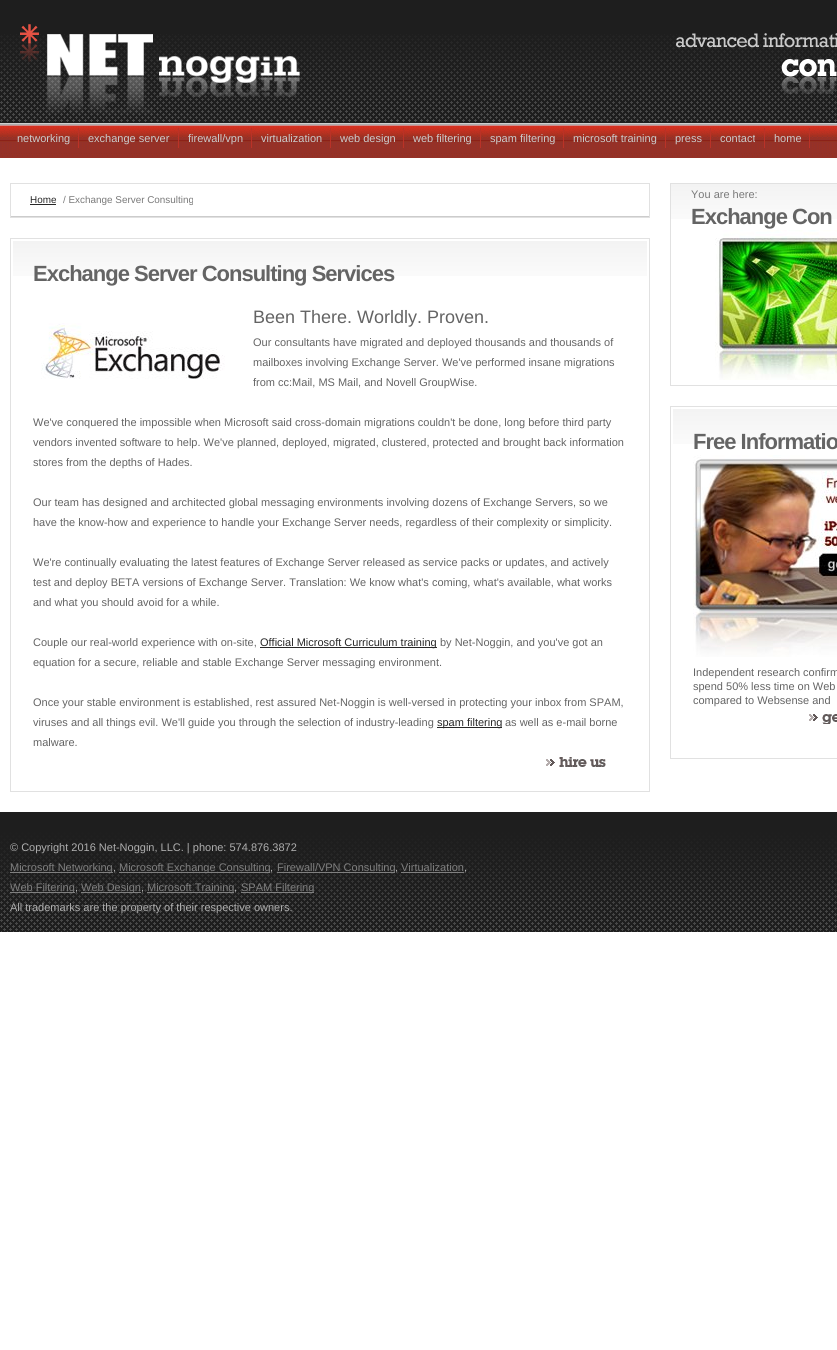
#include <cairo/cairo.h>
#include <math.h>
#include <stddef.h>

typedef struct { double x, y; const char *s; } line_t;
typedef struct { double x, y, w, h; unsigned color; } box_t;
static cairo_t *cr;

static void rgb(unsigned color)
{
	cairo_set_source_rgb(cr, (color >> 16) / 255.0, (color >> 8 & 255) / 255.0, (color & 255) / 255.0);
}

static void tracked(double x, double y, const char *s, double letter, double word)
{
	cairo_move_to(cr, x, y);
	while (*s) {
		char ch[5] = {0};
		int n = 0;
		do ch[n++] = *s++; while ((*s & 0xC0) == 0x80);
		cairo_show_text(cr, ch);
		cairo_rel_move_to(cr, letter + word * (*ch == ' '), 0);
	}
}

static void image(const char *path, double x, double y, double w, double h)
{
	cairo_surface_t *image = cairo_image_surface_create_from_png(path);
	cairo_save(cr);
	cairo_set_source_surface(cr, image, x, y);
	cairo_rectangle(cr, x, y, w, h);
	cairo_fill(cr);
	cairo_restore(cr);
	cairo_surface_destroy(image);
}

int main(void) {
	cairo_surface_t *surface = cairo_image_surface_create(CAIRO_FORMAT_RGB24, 837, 1350);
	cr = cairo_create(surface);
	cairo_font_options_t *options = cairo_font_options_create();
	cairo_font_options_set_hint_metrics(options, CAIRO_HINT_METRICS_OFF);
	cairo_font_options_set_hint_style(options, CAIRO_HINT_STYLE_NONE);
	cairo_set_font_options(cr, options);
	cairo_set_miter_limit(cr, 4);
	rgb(0xffffff);
	cairo_paint(cr);
	rgb(0x1e1e1e);
	cairo_rectangle(cr, 0, 0, 837, 123);
	cairo_fill(cr);
	image("img/1.png", 0, 34, 837, 88);
	image("img/2.png", 20, 24, 280, 90);
	image("img/3.png", 676, 33, 161, 61);
	image("img/4.png", 0, 123, 837, 35);
	{
		static const box_t items[] = {
			{78, 128, 1, 20, 0xba3227},
			{178, 128, 1, 20, 0xba3227},
			{251, 128, 1, 20, 0xba3227},
			{330, 128, 1, 20, 0xba3227},
			{403, 128, 1, 20, 0xba3227},
			{480, 128, 1, 20, 0xba3227},
			{563, 128, 1, 20, 0xba3227},
			{665, 128, 1, 20, 0xba3227},
			{710, 128, 1, 20, 0xba3227},
			{764, 128, 1, 20, 0xba3227},
			{809, 128, 1, 20, 0xba3227},
		};
		for (size_t i = 0; i < sizeof items / sizeof *items; i++) {
			rgb(items[i].color);
			cairo_rectangle(cr, items[i].x, items[i].y, items[i].w, items[i].h);
			cairo_fill(cr);
		}
	}
	cairo_rectangle(cr, 10.5, 183.5, 639, 34);
	rgb(0xe1e1e1);
	cairo_set_line_width(cr, 1);
	cairo_stroke(cr);
	rgb(0xcccccc);
	cairo_rectangle(cr, 11, 216, 638, 1);
	cairo_fill(cr);
	rgb(0x272727);
	cairo_rectangle(cr, 30, 204, 26, 1);
	cairo_fill(cr);
	cairo_rectangle(cr, 10.5, 238.5, 639, 553);
	rgb(0xe1e1e1);
	cairo_stroke(cr);
	image("img/5.png", 13, 241, 634, 35);
	image("img/6.png", 41, 323, 184, 56);
	rgb(0x272727);
	cairo_rectangle(cr, 260, 647, 177, 1);
	cairo_fill(cr);
	cairo_rectangle(cr, 437, 727, 65, 1);
	cairo_fill(cr);
	image("img/7.png", 546, 757, 60, 10);
	cairo_rectangle(cr, 670.5, 183.5, 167, 202);
	rgb(0xe1e1e1);
	cairo_stroke(cr);
	image("img/8.png", 671, 184, 166, 35);
	image("img/9.png", 715, 230, 122, 150);
	cairo_rectangle(cr, 670.5, 406.5, 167, 352);
	cairo_stroke(cr);
	image("img/10.png", 673, 409, 164, 35);
	image("img/11.png", 693, 455, 144, 202);
	image("img/12.png", 809, 714, 28, 10);
	image("img/13.png", 0, 812, 837, 120);
	{
		static const box_t items[] = {
			{10, 872, 103, 1, 0x7f7f7f},
			{119, 872, 151, 1, 0x7f7f7f},
			{277, 872, 118, 1, 0x7f7f7f},
			{401, 872, 63, 1, 0x7f7f7f},
			{10, 892, 65, 1, 0x7f7f7f},
			{81, 892, 60, 1, 0x7f7f7f},
			{147, 892, 87, 1, 0x7f7f7f},
			{241, 892, 73, 1, 0x7f7f7f},
		};
		for (size_t i = 0; i < sizeof items / sizeof *items; i++) {
			rgb(items[i].color);
			cairo_rectangle(cr, items[i].x, items[i].y, items[i].w, items[i].h);
			cairo_fill(cr);
		}
	}
	cairo_select_font_face(cr, "Liberation Sans", CAIRO_FONT_SLANT_NORMAL, CAIRO_FONT_WEIGHT_NORMAL);
	cairo_set_font_size(cr, 11);
	rgb(0xcccccc);
	{
		static const line_t items[] = {
			{17, 142, "networking"},
			{88, 142, "exchange server"},
			{188, 142, "firewall/vpn"},
			{261, 142, "virtualization"},
			{340, 142, "web design"},
			{413, 142, "web filtering"},
			{490, 142, "spam filtering"},
			{573, 142, "microsoft training"},
			{675, 142, "press"},
			{720, 142, "contact"},
			{774, 142, "home"},
		};
		for (size_t i = 0; i < sizeof items / sizeof *items; i++) {
			cairo_move_to(cr, items[i].x, items[i].y);
			cairo_show_text(cr, items[i].s);
		}
	}
	cairo_set_font_size(cr, 9.9);
	rgb(0x272727);
	cairo_move_to(cr, 30, 203);
	cairo_show_text(cr, "Home");
	rgb(0x797979);
	cairo_move_to(cr, 63, 203);
	cairo_show_text(cr, "/ Exchange Server Consulting");
	cairo_select_font_face(cr, "Liberation Sans", CAIRO_FONT_SLANT_NORMAL, CAIRO_FONT_WEIGHT_BOLD);
	cairo_set_font_size(cr, 22);
	rgb(0x646464);
	tracked(33, 281, "Exchange Server Consulting Services", -1, 0);
	cairo_select_font_face(cr, "Liberation Sans", CAIRO_FONT_SLANT_NORMAL, CAIRO_FONT_WEIGHT_NORMAL);
	cairo_set_font_size(cr, 18);
	cairo_move_to(cr, 253, 323);
	cairo_show_text(cr, "Been There. Worldly. Proven.");
	cairo_set_font_size(cr, 11);
	{
		static const line_t items[] = {
			{253, 346, "Our consultants have migrated and deployed thousands and thousands of"},
			{253, 366, "mailboxes involving Exchange Server. We've performed insane migrations"},
			{253, 386, "from cc:Mail, MS Mail, and Novell GroupWise."},
			{33, 426, "We've conquered the impossible when Microsoft said cross-domain migrations couldn't be done, long before third party"},
			{33, 446, "vendors invented software to help. We've planned, deployed, migrated, clustered, protected and brought back information"},
			{33, 466, "stores from the depths of Hades."},
			{33, 506, "Our team has designed and architected global messaging environments involving dozens of Exchange Servers, so we"},
			{33, 526, "have the know-how and experience to handle your Exchange Server needs, regardless of their complexity or simplicity."},
			{33, 566, "We're continually evaluating the latest features of Exchange Server released as service packs or updates, and actively"},
			{33, 586, "test and deploy BETA versions of Exchange Server. Translation: We know what's coming, what's available, what works"},
			{33, 606, "and what you should avoid for a while."},
			{33, 646, "Couple our real-world experience with on-site,"},
		};
		for (size_t i = 0; i < sizeof items / sizeof *items; i++) {
			cairo_move_to(cr, items[i].x, items[i].y);
			cairo_show_text(cr, items[i].s);
		}
	}
	rgb(0x272727);
	cairo_move_to(cr, 260, 646);
	cairo_show_text(cr, "Official Microsoft Curriculum training");
	rgb(0x646464);
	{
		static const line_t items[] = {
			{440, 646, "by Net-Noggin, and you've got an"},
			{33, 666, "equation for a secure, reliable and stable Exchange Server messaging environment."},
			{33, 706, "Once your stable environment is established, rest assured Net-Noggin is well-versed in protecting your inbox from SPAM,"},
			{33, 726, "viruses and all things evil. We'll guide you through the selection of industry-leading"},
		};
		for (size_t i = 0; i < sizeof items / sizeof *items; i++) {
			cairo_move_to(cr, items[i].x, items[i].y);
			cairo_show_text(cr, items[i].s);
		}
	}
	rgb(0x272727);
	cairo_move_to(cr, 437, 726);
	cairo_show_text(cr, "spam filtering");
	rgb(0x646464);
	cairo_move_to(cr, 505, 726);
	cairo_show_text(cr, "as well as e-mail borne");
	cairo_move_to(cr, 33, 746);
	cairo_show_text(cr, "malware.");
	rgb(0x797979);
	cairo_move_to(cr, 691, 198);
	cairo_show_text(cr, "You are here:");
	cairo_select_font_face(cr, "Liberation Sans", CAIRO_FONT_SLANT_NORMAL, CAIRO_FONT_WEIGHT_BOLD);
	cairo_set_font_size(cr, 22);
	rgb(0x646464);
	tracked(691, 224, "Exchange Con", -1, 0);
	tracked(693, 449, "Free Informatio", -1, 0);
	cairo_select_font_face(cr, "Liberation Sans", CAIRO_FONT_SLANT_NORMAL, CAIRO_FONT_WEIGHT_NORMAL);
	cairo_set_font_size(cr, 11);
	{
		static const line_t items[] = {
			{693, 676, "Independent research confirm"},
			{693, 690, "spend 50% less time on Web"},
			{693, 704, "compared to Websense and"},
		};
		for (size_t i = 0; i < sizeof items / sizeof *items; i++) {
			cairo_move_to(cr, items[i].x, items[i].y);
			cairo_show_text(cr, items[i].s);
		}
	}
	rgb(0xafafaf);
	cairo_move_to(cr, 10, 851);
	cairo_show_text(cr, "© Copyright 2016 Net-Noggin, LLC. | phone: 574.876.3872");
	rgb(0x7f7f7f);
	cairo_move_to(cr, 10, 871);
	cairo_show_text(cr, "Microsoft Networking");
	rgb(0xafafaf);
	cairo_move_to(cr, 113, 871);
	cairo_show_text(cr, ",");
	rgb(0x7f7f7f);
	cairo_move_to(cr, 119, 871);
	cairo_show_text(cr, "Microsoft Exchange Consulting");
	rgb(0xafafaf);
	cairo_move_to(cr, 270, 871);
	cairo_show_text(cr, ",");
	rgb(0x7f7f7f);
	cairo_move_to(cr, 277, 871);
	cairo_show_text(cr, "Firewall/VPN Consulting");
	rgb(0xafafaf);
	cairo_move_to(cr, 395, 871);
	cairo_show_text(cr, ",");
	rgb(0x7f7f7f);
	cairo_move_to(cr, 401, 871);
	cairo_show_text(cr, "Virtualization");
	rgb(0xafafaf);
	cairo_move_to(cr, 464, 871);
	cairo_show_text(cr, ",");
	rgb(0x7f7f7f);
	cairo_move_to(cr, 10, 891);
	cairo_show_text(cr, "Web Filtering");
	rgb(0xafafaf);
	cairo_move_to(cr, 75, 891);
	cairo_show_text(cr, ",");
	rgb(0x7f7f7f);
	cairo_move_to(cr, 81, 891);
	cairo_show_text(cr, "Web Design");
	rgb(0xafafaf);
	cairo_move_to(cr, 141, 891);
	cairo_show_text(cr, ",");
	rgb(0x7f7f7f);
	cairo_move_to(cr, 147, 891);
	cairo_show_text(cr, "Microsoft Training");
	rgb(0xafafaf);
	cairo_move_to(cr, 234, 891);
	cairo_show_text(cr, ",");
	rgb(0x7f7f7f);
	cairo_move_to(cr, 241, 891);
	cairo_show_text(cr, "SPAM Filtering");
	rgb(0xafafaf);
	cairo_move_to(cr, 10, 911);
	cairo_show_text(cr, "All trademarks are the property of their respective owners.");
	cairo_surface_write_to_png(surface, "page.png");
	cairo_font_options_destroy(options);
	cairo_destroy(cr);
	cairo_surface_destroy(surface);
	return 0;
}
